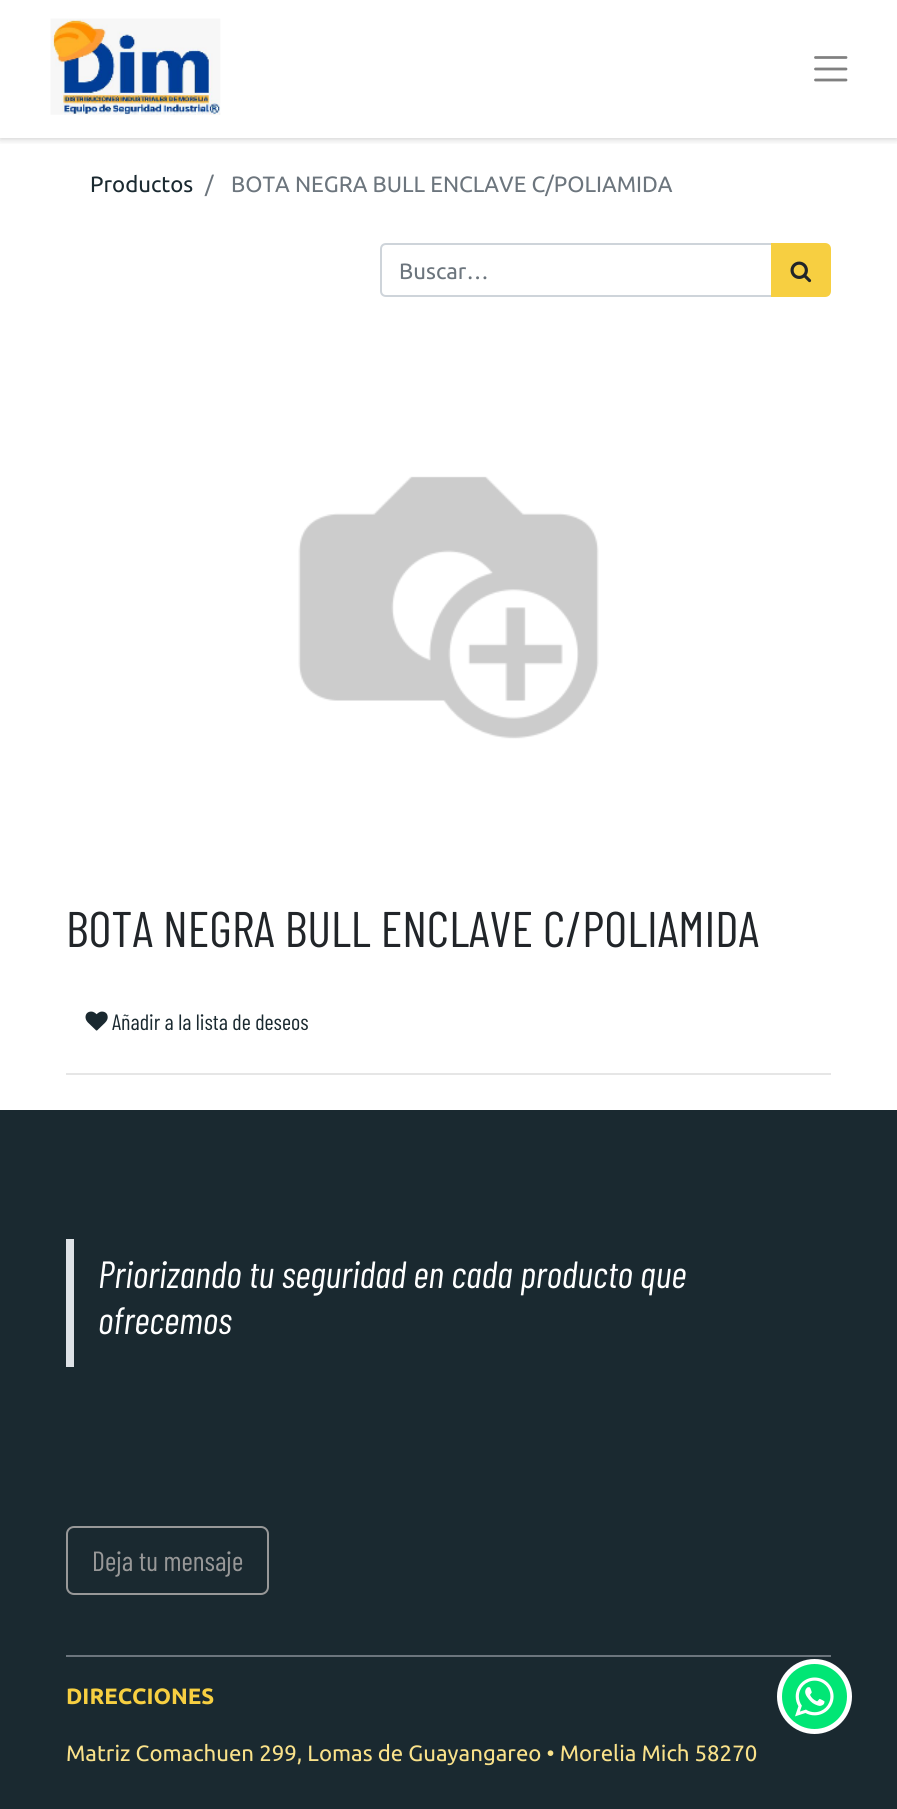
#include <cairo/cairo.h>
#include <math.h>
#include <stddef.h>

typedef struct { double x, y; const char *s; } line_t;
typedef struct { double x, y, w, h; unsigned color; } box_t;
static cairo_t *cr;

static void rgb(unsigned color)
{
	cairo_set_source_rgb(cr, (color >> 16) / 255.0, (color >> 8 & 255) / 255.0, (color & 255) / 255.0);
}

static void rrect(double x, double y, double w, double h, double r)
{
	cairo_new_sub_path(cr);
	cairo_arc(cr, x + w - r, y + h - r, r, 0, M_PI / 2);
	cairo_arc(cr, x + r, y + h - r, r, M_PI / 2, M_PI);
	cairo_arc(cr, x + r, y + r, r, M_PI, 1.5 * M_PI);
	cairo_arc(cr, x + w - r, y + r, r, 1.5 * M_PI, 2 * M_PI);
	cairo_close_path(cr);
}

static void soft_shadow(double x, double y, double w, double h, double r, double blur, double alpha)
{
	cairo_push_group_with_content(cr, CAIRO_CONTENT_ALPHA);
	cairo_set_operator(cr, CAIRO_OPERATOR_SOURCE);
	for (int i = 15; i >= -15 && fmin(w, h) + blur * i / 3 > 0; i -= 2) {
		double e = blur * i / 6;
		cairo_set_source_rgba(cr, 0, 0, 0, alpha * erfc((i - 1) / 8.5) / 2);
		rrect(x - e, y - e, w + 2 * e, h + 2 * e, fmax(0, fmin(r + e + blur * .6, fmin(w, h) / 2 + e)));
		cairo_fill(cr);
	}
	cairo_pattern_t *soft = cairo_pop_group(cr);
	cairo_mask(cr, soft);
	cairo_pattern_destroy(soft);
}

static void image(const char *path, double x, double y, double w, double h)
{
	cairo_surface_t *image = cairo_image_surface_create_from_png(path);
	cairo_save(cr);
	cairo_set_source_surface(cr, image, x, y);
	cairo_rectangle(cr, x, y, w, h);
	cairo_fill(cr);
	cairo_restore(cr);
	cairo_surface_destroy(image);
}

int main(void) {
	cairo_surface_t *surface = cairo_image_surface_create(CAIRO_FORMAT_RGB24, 897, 1809);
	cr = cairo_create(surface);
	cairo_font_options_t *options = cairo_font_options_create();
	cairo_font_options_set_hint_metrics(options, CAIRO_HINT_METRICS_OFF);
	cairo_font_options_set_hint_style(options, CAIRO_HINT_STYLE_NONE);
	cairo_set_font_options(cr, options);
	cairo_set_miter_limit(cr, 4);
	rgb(0xffffff);
	cairo_paint(cr);
	cairo_save(cr);
	cairo_rectangle(cr, 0, 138, 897, 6);
	cairo_clip(cr);
	rgb(0x000000);
	soft_shadow(0, 0, 897, 138, 0, 4, 0.25);
	cairo_restore(cr);
	image("img/1.png", 50, 18, 171, 97);
	cairo_new_path(cr);
	cairo_move_to(cr, 815.5, 57.5);
	cairo_line_to(cr, 846, 57.5);
	cairo_move_to(cr, 815.5, 69);
	cairo_line_to(cr, 846, 69);
	cairo_move_to(cr, 815.5, 80);
	cairo_line_to(cr, 846, 80);
	rgb(0x808080);
	cairo_set_line_width(cr, 2.8);
	cairo_set_line_cap(cr, CAIRO_LINE_CAP_ROUND);
	cairo_stroke(cr);
	cairo_new_path(cr);
	cairo_move_to(cr, 386, 244);
	cairo_line_to(cr, 772, 244);
	cairo_line_to(cr, 772, 296);
	cairo_line_to(cr, 386, 296);
	cairo_curve_to(cr, 383, 296, 381, 294, 381, 291);
	cairo_line_to(cr, 381, 249);
	cairo_curve_to(cr, 381, 246, 383, 244, 386, 244);
	cairo_close_path(cr);
	rgb(0xced4da);
	cairo_set_line_width(cr, 2);
	cairo_set_line_cap(cr, CAIRO_LINE_CAP_BUTT);
	cairo_stroke(cr);
	rgb(0xf7cf41);
	cairo_new_path(cr);
	cairo_move_to(cr, 772, 244);
	cairo_line_to(cr, 825, 244);
	cairo_curve_to(cr, 828, 244, 830, 246, 830, 249);
	cairo_line_to(cr, 830, 291);
	cairo_curve_to(cr, 830, 294, 828, 296, 825, 296);
	cairo_line_to(cr, 772, 296);
	cairo_close_path(cr);
	cairo_fill_preserve(cr);
	cairo_stroke(cr);
	image("img/2.png", 790, 261, 22, 22);
	image("img/3.png", 298, 476, 301, 263);
	image("img/4.png", 85, 1011, 23, 20);
	{
		static const box_t items[] = {
			{66, 1073, 765, 2, 0xe6e6e6},
			{0, 1110, 897, 699, 0x1a2930},
			{66, 1239, 8, 128, 0xdee2e6},
		};
		for (size_t i = 0; i < sizeof items / sizeof *items; i++) {
			rgb(items[i].color);
			cairo_rectangle(cr, items[i].x, items[i].y, items[i].w, items[i].h);
			cairo_fill(cr);
		}
	}
	rrect(67, 1527, 201, 67, 7);
	rgb(0x989898);
	cairo_stroke(cr);
	rgb(0x6c757d);
	cairo_rectangle(cr, 66, 1655, 765, 2);
	cairo_fill(cr);
	rgb(0x01e675);
	cairo_arc(cr, 814.5, 1696.5, 35, 0, 2 * M_PI);
	cairo_fill_preserve(cr);
	rgb(0xffffff);
	cairo_set_line_width(cr, 5);
	cairo_stroke(cr);
	image("img/5.png", 795, 1677, 39, 40);
	cairo_select_font_face(cr, "Ubuntu", CAIRO_FONT_SLANT_NORMAL, CAIRO_FONT_WEIGHT_NORMAL);
	cairo_set_font_size(cr, 22.2);
	rgb(0x1a2930);
	cairo_move_to(cr, 90, 192);
	cairo_show_text(cr, "Productos");
	rgb(0x6c757d);
	{
		static const line_t items[] = {
			{205, 192, "/"},
			{231, 192, "BOTA NEGRA BULL ENCLAVE C/POLIAMIDA"},
			{399, 279, "Buscar…"},
		};
		for (size_t i = 0; i < sizeof items / sizeof *items; i++) {
			cairo_move_to(cr, items[i].x, items[i].y);
			cairo_show_text(cr, items[i].s);
		}
	}
	cairo_select_font_face(cr, "Barlow Condensed", CAIRO_FONT_SLANT_NORMAL, CAIRO_FONT_WEIGHT_NORMAL);
	cairo_set_font_size(cr, 50.1);
	rgb(0x212529);
	cairo_move_to(cr, 66, 947);
	cairo_show_text(cr, "BOTA NEGRA BULL ENCLAVE C/POLIAMIDA");
	cairo_set_font_size(cr, 22.2);
	rgb(0x1a2930);
	cairo_move_to(cr, 112, 1030);
	cairo_show_text(cr, "Añadir a la lista de deseos");
	cairo_select_font_face(cr, "Barlow Condensed", CAIRO_FONT_SLANT_ITALIC, CAIRO_FONT_WEIGHT_NORMAL);
	cairo_set_font_size(cr, 37.9);
	rgb(0xffffff);
	cairo_move_to(cr, 98, 1288);
	cairo_show_text(cr, "Priorizando tu seguridad en cada producto que");
	cairo_move_to(cr, 98, 1334);
	cairo_show_text(cr, "ofrecemos");
	cairo_select_font_face(cr, "Barlow Condensed", CAIRO_FONT_SLANT_NORMAL, CAIRO_FONT_WEIGHT_NORMAL);
	cairo_set_font_size(cr, 27.75);
	rgb(0x989898);
	cairo_move_to(cr, 92, 1571);
	cairo_show_text(cr, "Deja tu mensaje");
	cairo_select_font_face(cr, "Ubuntu", CAIRO_FONT_SLANT_NORMAL, CAIRO_FONT_WEIGHT_BOLD);
	cairo_set_font_size(cr, 22.2);
	rgb(0xf7cf41);
	cairo_move_to(cr, 66, 1704);
	cairo_show_text(cr, "DIRECCIONES");
	cairo_select_font_face(cr, "Ubuntu", CAIRO_FONT_SLANT_NORMAL, CAIRO_FONT_WEIGHT_NORMAL);
	rgb(0xfae28a);
	cairo_move_to(cr, 66, 1761);
	cairo_show_text(cr, "Matriz Comachuen 299, Lomas de Guayangareo • Morelia Mich 58270");
	cairo_surface_write_to_png(surface, "page.png");
	cairo_font_options_destroy(options);
	cairo_destroy(cr);
	cairo_surface_destroy(surface);
	return 0;
}
